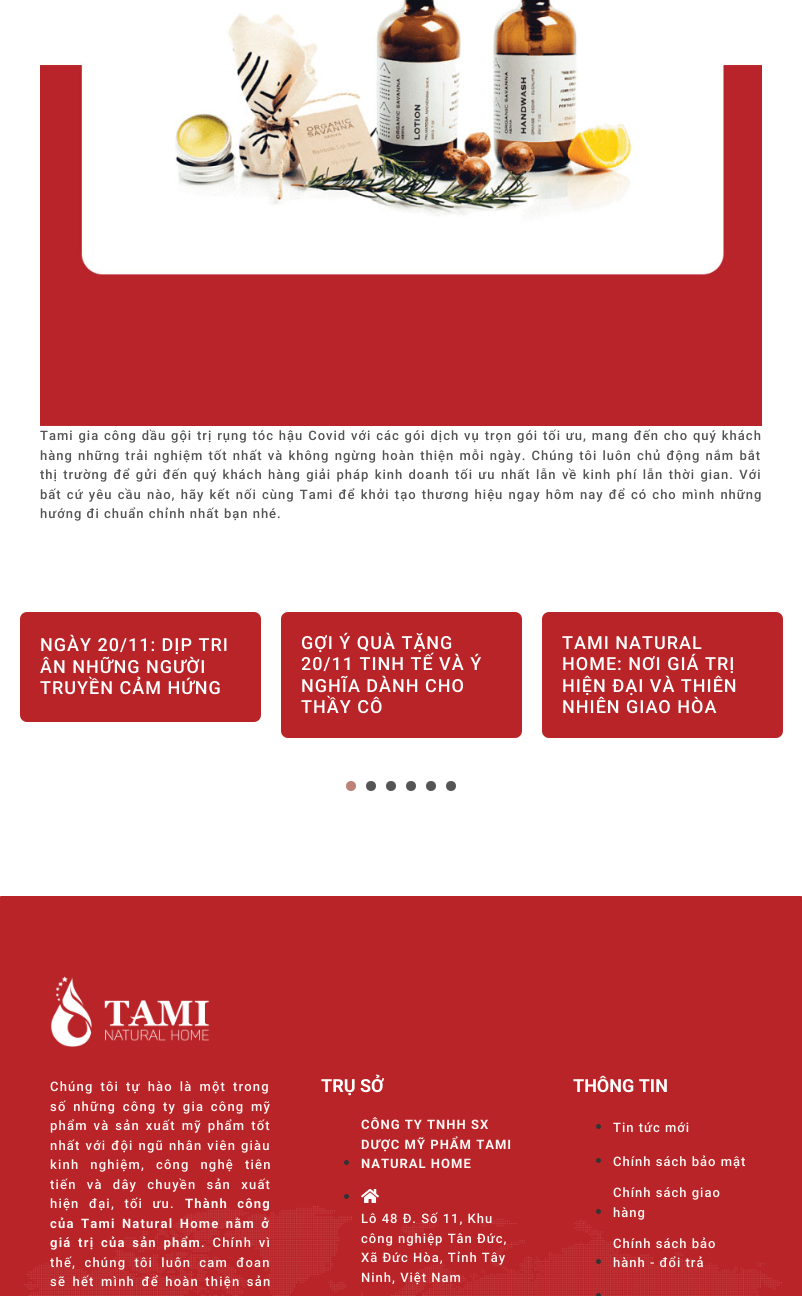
#include <cairo/cairo.h>
#include <math.h>
#include <stddef.h>

typedef struct { double x, y; const char *s; } line_t;
static cairo_t *cr;

static void rgb(unsigned color)
{
	cairo_set_source_rgb(cr, (color >> 16) / 255.0, (color >> 8 & 255) / 255.0, (color & 255) / 255.0);
}

static void tracked(double x, double y, const char *s, double letter, double word)
{
	cairo_move_to(cr, x, y);
	while (*s) {
		char ch[5] = {0};
		int n = 0;
		do ch[n++] = *s++; while ((*s & 0xC0) == 0x80);
		cairo_show_text(cr, ch);
		cairo_rel_move_to(cr, letter + word * (*ch == ' '), 0);
	}
}

static void rrect(double x, double y, double w, double h, double r)
{
	cairo_new_sub_path(cr);
	cairo_arc(cr, x + w - r, y + h - r, r, 0, M_PI / 2);
	cairo_arc(cr, x + r, y + h - r, r, M_PI / 2, M_PI);
	cairo_arc(cr, x + r, y + r, r, M_PI, 1.5 * M_PI);
	cairo_arc(cr, x + w - r, y + r, r, 1.5 * M_PI, 2 * M_PI);
	cairo_close_path(cr);
}

static void image(const char *path, double x, double y, double w, double h)
{
	cairo_surface_t *image = cairo_image_surface_create_from_png(path);
	cairo_save(cr);
	cairo_set_source_surface(cr, image, x, y);
	cairo_rectangle(cr, x, y, w, h);
	cairo_fill(cr);
	cairo_restore(cr);
	cairo_surface_destroy(image);
}

int main(void) {
	cairo_surface_t *surface = cairo_image_surface_create(CAIRO_FORMAT_RGB24, 802, 1296);
	cr = cairo_create(surface);
	cairo_font_options_t *options = cairo_font_options_create();
	cairo_font_options_set_hint_metrics(options, CAIRO_HINT_METRICS_OFF);
	cairo_font_options_set_hint_style(options, CAIRO_HINT_STYLE_NONE);
	cairo_set_font_options(cr, options);
	cairo_set_miter_limit(cr, 4);
	rgb(0xffffff);
	cairo_paint(cr);
	image("img/1.png", 40, 0, 722, 426);
	rgb(0xb92428);
	rrect(20, 612, 241, 110, 7);
	cairo_fill(cr);
	rrect(281, 612, 241, 126, 7);
	cairo_fill(cr);
	rrect(542, 612, 241, 126, 7);
	cairo_fill(cr);
	rgb(0xbc827a);
	cairo_arc(cr, 351, 786, 5, 0, 2 * M_PI);
	cairo_fill(cr);
	rgb(0x555555);
	cairo_arc(cr, 371, 786, 5, 0, 2 * M_PI);
	cairo_fill(cr);
	cairo_arc(cr, 391, 786, 5, 0, 2 * M_PI);
	cairo_fill(cr);
	cairo_arc(cr, 411, 786, 5, 0, 2 * M_PI);
	cairo_fill(cr);
	cairo_arc(cr, 431, 786, 5, 0, 2 * M_PI);
	cairo_fill(cr);
	cairo_arc(cr, 451, 786, 5, 0, 2 * M_PI);
	cairo_fill(cr);
	rgb(0xb92428);
	rrect(0, 896, 802, 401, 1);
	cairo_fill(cr);
	image("img/2.png", 24, 1206, 758, 90);
	image("img/3.png", 50, 976, 160, 71);
	rgb(0x333333);
	cairo_arc(cr, 346.5, 1162.5, 2.5, 0, 2 * M_PI);
	cairo_fill(cr);
	cairo_arc(cr, 346.5, 1196.5, 2.5, 0, 2 * M_PI);
	cairo_fill(cr);
	image("img/4.png", 361, 1189, 18, 14);
	cairo_arc(cr, 598.5, 1126.5, 2.5, 0, 2 * M_PI);
	cairo_fill(cr);
	cairo_arc(cr, 598.5, 1160.5, 2.5, 0, 2 * M_PI);
	cairo_fill(cr);
	cairo_arc(cr, 598.5, 1211.5, 2.5, 0, 2 * M_PI);
	cairo_fill(cr);
	cairo_arc(cr, 598.5, 1261.5, 2.5, 0, 2 * M_PI);
	cairo_fill(cr);
	cairo_arc(cr, 598.5, 1295.5, 2.5, 0, 2 * M_PI);
	cairo_fill(cr);
	cairo_select_font_face(cr, "Roboto Medium", CAIRO_FONT_SLANT_NORMAL, CAIRO_FONT_WEIGHT_NORMAL);
	cairo_set_font_size(cr, 13);
	rgb(0x555555);
	tracked(40, 440, "Tami gia công dầu gội trị rụng tóc hậu Covid với các gói dịch vụ trọn gói tối ưu, mang đến cho quý khách", 1, 0.65);
	tracked(40, 460, "hàng những trải nghiệm tốt nhất và không ngừng hoàn thiện mỗi ngày. Chúng tôi luôn chủ động nắm bắt", 1, 1);
	tracked(40, 479, "thị trường để gửi đến quý khách hàng giải pháp kinh doanh tối ưu nhất lẫn về kinh phí lẫn thời gian. Với", 1, 1.1);
	tracked(40, 499, "bất cứ yêu cầu nào, hãy kết nối cùng Tami để khởi tạo thương hiệu ngay hôm nay để có cho mình những", 1, 1);
	tracked(40, 518, "hướng đi chuẩn chỉnh nhất bạn nhé.", 1, 0);
	cairo_set_font_size(cr, 18);
	rgb(0xffffff);
	{
		static const line_t items[] = {
			{40, 651, "NGÀY 20/11: DỊP TRI"},
			{40, 673, "ÂN NHỮNG NGƯỜI"},
			{40, 694, "TRUYỀN CẢM HỨNG"},
			{301, 649, "GỢI Ý QUÀ TẶNG"},
			{301, 670, "20/11 TINH TẾ VÀ Ý"},
			{301, 692, "NGHĨA DÀNH CHO"},
			{301, 713, "THẦY CÔ"},
			{562, 649, "TAMI NATURAL"},
			{562, 670, "HOME: NƠI GIÁ TRỊ"},
			{562, 692, "HIỆN ĐẠI VÀ THIÊN"},
			{562, 713, "NHIÊN GIAO HÒA"},
		};
		for (size_t i = 0; i < sizeof items / sizeof *items; i++) {
			tracked(items[i].x, items[i].y, items[i].s, 1, 0);
		}
	}
	cairo_set_font_size(cr, 13);
	rgb(0xfff6f4);
	tracked(50, 1091, "Chúng tôi tự hào là một trong", 1.2, 2.5);
	tracked(50, 1111, "số những công ty gia công mỹ", 1.2, 2.25);
	tracked(50, 1130, "phẩm và sản xuất mỹ phẩm tốt", 1.2, 1.5);
	tracked(50, 1150, "nhất với đội ngũ nhân viên giàu", 1.2, 0.5);
	tracked(50, 1169, "kinh nghiệm, công nghệ tiên", 1.2, 6.5);
	tracked(50, 1189, "tiến và dây chuyền sản xuất", 1.2, 5.75);
	tracked(50, 1208, "hiện đại, tối ưu.", 1.2, 5);
	cairo_select_font_face(cr, "Roboto", CAIRO_FONT_SLANT_NORMAL, CAIRO_FONT_WEIGHT_BOLD);
	tracked(185, 1208, "Thành công", 1.2, 5);
	tracked(50, 1228, "của Tami Natural Home nằm ở", 1.2, 2);
	tracked(50, 1247, "giá trị của sản phẩm", 1.2, 2.25);
	cairo_select_font_face(cr, "Roboto Medium", CAIRO_FONT_SLANT_NORMAL, CAIRO_FONT_WEIGHT_NORMAL);
	tracked(201, 1247, ". Chính vì", 1.2, 2.25);
	tracked(50, 1267, "thế, chúng tôi luôn cam đoan", 1.2, 3.75);
	tracked(50, 1286, "sẽ hết mình để hoàn thiện sản", 1.2, 2);
	cairo_select_font_face(cr, "Roboto", CAIRO_FONT_SLANT_NORMAL, CAIRO_FONT_WEIGHT_BOLD);
	cairo_set_font_size(cr, 18);
	rgb(0xffffff);
	cairo_move_to(cr, 321, 1092);
	cairo_show_text(cr, "TRỤ SỞ");
	cairo_set_font_size(cr, 13);
	rgb(0xfff6f4);
	{
		static const line_t items[] = {
			{361, 1129, "CÔNG TY TNHH SX"},
			{361, 1149, "DƯỢC MỸ PHẨM TAMI"},
			{361, 1168, "NATURAL HOME"},
		};
		for (size_t i = 0; i < sizeof items / sizeof *items; i++) {
			tracked(items[i].x, items[i].y, items[i].s, 1, 0);
		}
	}
	cairo_select_font_face(cr, "Roboto Medium", CAIRO_FONT_SLANT_NORMAL, CAIRO_FONT_WEIGHT_NORMAL);
	{
		static const line_t items[] = {
			{361, 1223, "Lô 48 Đ. Số 11, Khu"},
			{361, 1243, "công nghiệp Tân Đức,"},
			{361, 1262, "Xã Đức Hòa, Tỉnh Tây"},
			{361, 1282, "Ninh, Việt Nam"},
		};
		for (size_t i = 0; i < sizeof items / sizeof *items; i++) {
			tracked(items[i].x, items[i].y, items[i].s, 1, 0);
		}
	}
	cairo_select_font_face(cr, "Roboto", CAIRO_FONT_SLANT_NORMAL, CAIRO_FONT_WEIGHT_BOLD);
	cairo_set_font_size(cr, 18);
	rgb(0xffffff);
	cairo_move_to(cr, 573, 1092);
	cairo_show_text(cr, "THÔNG TIN");
	cairo_select_font_face(cr, "Roboto Medium", CAIRO_FONT_SLANT_NORMAL, CAIRO_FONT_WEIGHT_NORMAL);
	cairo_set_font_size(cr, 13);
	rgb(0xfff6f4);
	{
		static const line_t items[] = {
			{613, 1132, "Tin tức mới"},
			{613, 1166, "Chính sách bảo mật"},
			{613, 1197, "Chính sách giao"},
			{613, 1217, "hàng"},
			{613, 1248, "Chính sách bảo"},
			{613, 1267, "hành - đổi trả"},
		};
		for (size_t i = 0; i < sizeof items / sizeof *items; i++) {
			tracked(items[i].x, items[i].y, items[i].s, 1, 0);
		}
	}
	cairo_surface_write_to_png(surface, "page.png");
	cairo_font_options_destroy(options);
	cairo_destroy(cr);
	cairo_surface_destroy(surface);
	return 0;
}
